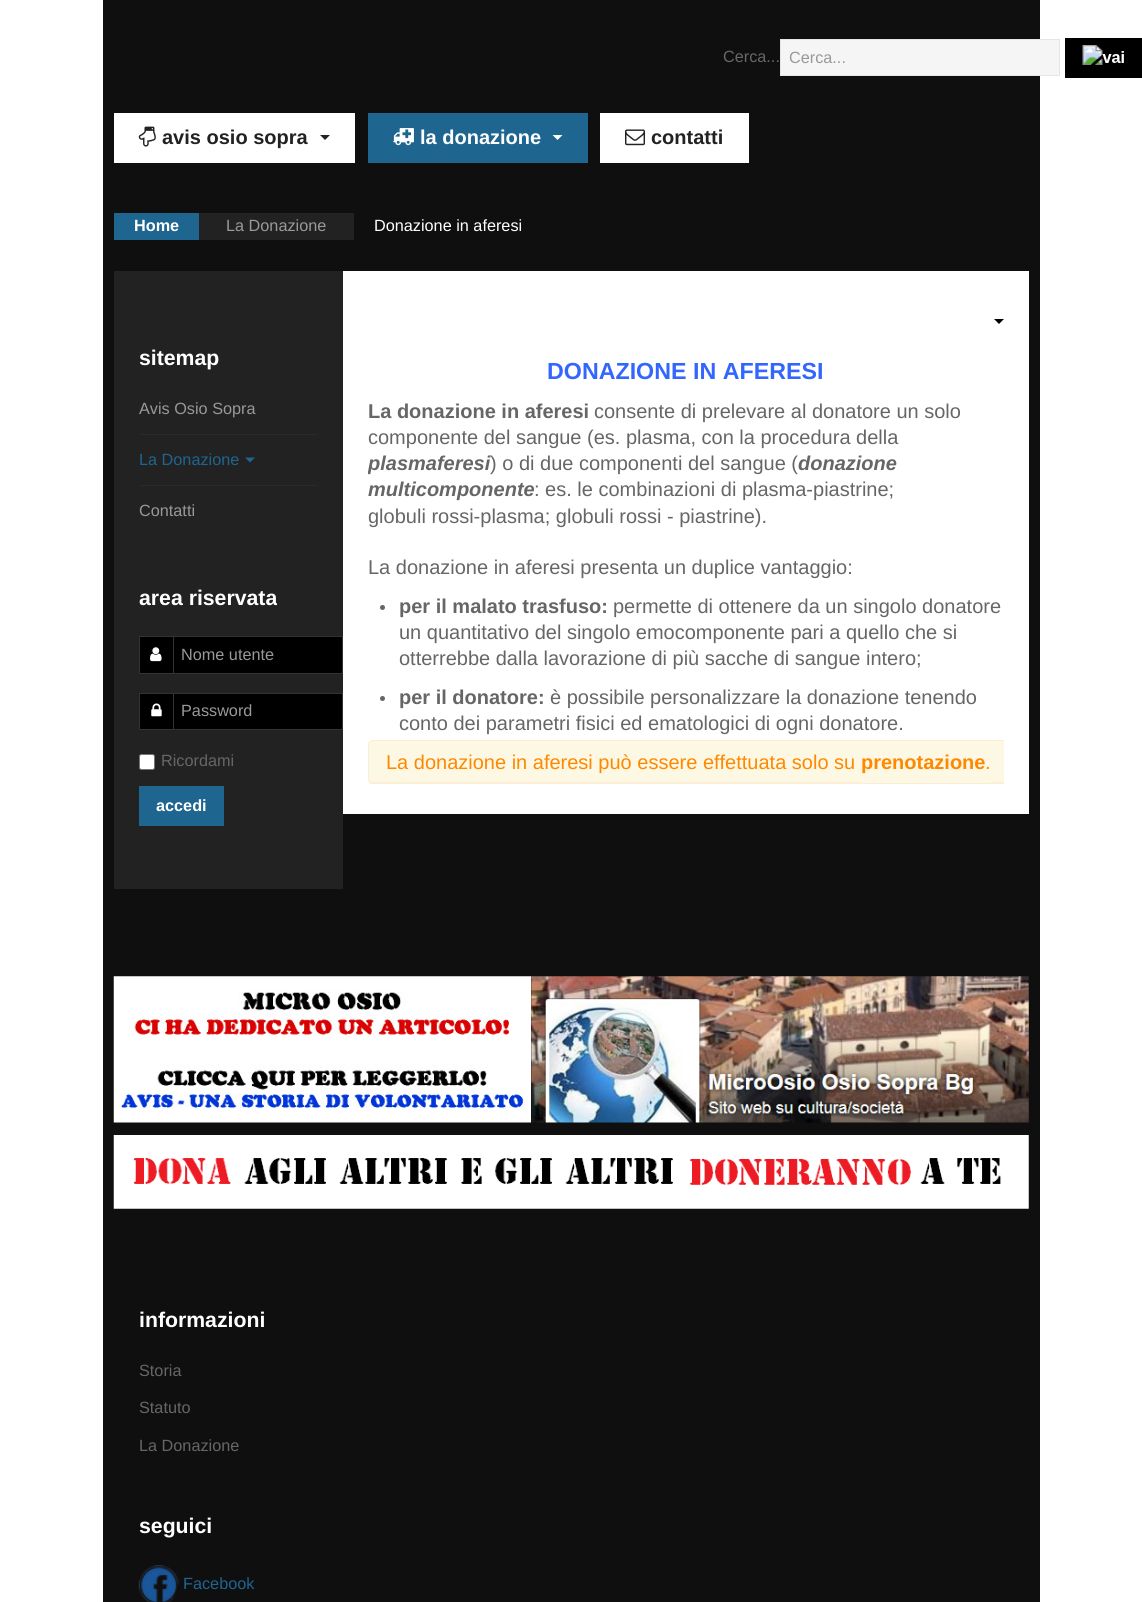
#include <cairo/cairo.h>
#include <math.h>
#include <stddef.h>

typedef struct { double x, y; const char *s; } line_t;
typedef struct { double x, y, w, h; unsigned color; } box_t;
static cairo_t *cr;

static void rgb(unsigned color)
{
	cairo_set_source_rgb(cr, (color >> 16) / 255.0, (color >> 8 & 255) / 255.0, (color & 255) / 255.0);
}

static void rrect(double x, double y, double w, double h, double r)
{
	cairo_new_sub_path(cr);
	cairo_arc(cr, x + w - r, y + h - r, r, 0, M_PI / 2);
	cairo_arc(cr, x + r, y + h - r, r, M_PI / 2, M_PI);
	cairo_arc(cr, x + r, y + r, r, M_PI, 1.5 * M_PI);
	cairo_arc(cr, x + w - r, y + r, r, 1.5 * M_PI, 2 * M_PI);
	cairo_close_path(cr);
}

static void image(const char *path, double x, double y, double w, double h)
{
	cairo_surface_t *image = cairo_image_surface_create_from_png(path);
	cairo_save(cr);
	cairo_set_source_surface(cr, image, x, y);
	cairo_rectangle(cr, x, y, w, h);
	cairo_fill(cr);
	cairo_restore(cr);
	cairo_surface_destroy(image);
}

int main(void) {
	cairo_surface_t *surface = cairo_image_surface_create(CAIRO_FORMAT_RGB24, 1142, 1602);
	cr = cairo_create(surface);
	cairo_font_options_t *options = cairo_font_options_create();
	cairo_font_options_set_hint_metrics(options, CAIRO_HINT_METRICS_OFF);
	cairo_font_options_set_hint_style(options, CAIRO_HINT_STYLE_NONE);
	cairo_set_font_options(cr, options);
	cairo_set_miter_limit(cr, 4);
	rgb(0xffffff);
	cairo_paint(cr);
	rgb(0x0f0f0f);
	cairo_rectangle(cr, 103, 0, 937, 1602);
	cairo_fill(cr);
	rgb(0xf5f5f5);
	cairo_rectangle(cr, 780.5, 39.5, 279, 36);
	cairo_fill_preserve(cr);
	rgb(0xe5e5e5);
	cairo_set_line_width(cr, 1);
	cairo_stroke(cr);
	rgb(0x000000);
	cairo_rectangle(cr, 1065, 38, 77, 40);
	cairo_fill(cr);
	image("img/1.png", 1082, 45, 42, 20);
	rgb(0xffffff);
	cairo_rectangle(cr, 114, 113, 241, 50);
	cairo_fill(cr);
	image("img/2.png", 138, 126, 18, 21);
	rgb(0x222222);
	cairo_new_path(cr);
	cairo_move_to(cr, 320, 135);
	cairo_line_to(cr, 330, 135);
	cairo_line_to(cr, 325, 140);
	cairo_close_path(cr);
	cairo_fill(cr);
	rgb(0x1e6590);
	cairo_rectangle(cr, 368, 113, 220, 50);
	cairo_fill(cr);
	image("img/3.png", 393, 128, 21, 18);
	rgb(0xffffff);
	cairo_new_path(cr);
	cairo_move_to(cr, 552.5, 135);
	cairo_line_to(cr, 562.5, 135);
	cairo_line_to(cr, 557.5, 140);
	cairo_close_path(cr);
	cairo_fill(cr);
	cairo_rectangle(cr, 600, 113, 149, 50);
	cairo_fill(cr);
	image("img/4.png", 625, 129, 20, 17);
	{
		static const box_t items[] = {
			{199, 213, 155, 27, 0x222222},
			{114, 213, 85, 27, 0x1e6590},
			{114, 271, 229, 618, 0x222222},
			{139, 434, 179, 1, 0x2a2a2a},
		};
		for (size_t i = 0; i < sizeof items / sizeof *items; i++) {
			rgb(items[i].color);
			cairo_rectangle(cr, items[i].x, items[i].y, items[i].w, items[i].h);
			cairo_fill(cr);
		}
	}
	rgb(0x1e6590);
	cairo_new_path(cr);
	cairo_move_to(cr, 245, 457.5);
	cairo_line_to(cr, 255, 457.5);
	cairo_line_to(cr, 250, 462.5);
	cairo_close_path(cr);
	cairo_fill(cr);
	rgb(0x2a2a2a);
	cairo_rectangle(cr, 139, 485, 179, 1);
	cairo_fill(cr);
	rgb(0x000000);
	cairo_rectangle(cr, 139.5, 636.5, 34, 37);
	cairo_fill_preserve(cr);
	rgb(0x333333);
	cairo_stroke(cr);
	image("img/5.png", 150, 647, 12, 15);
	rgb(0x000000);
	cairo_rectangle(cr, 173.5, 636.5, 169, 37);
	cairo_fill_preserve(cr);
	rgb(0x333333);
	cairo_stroke(cr);
	rgb(0x000000);
	cairo_rectangle(cr, 139.5, 693.5, 34, 36);
	cairo_fill_preserve(cr);
	rgb(0x333333);
	cairo_stroke(cr);
	image("img/6.png", 151, 703, 11, 14);
	rgb(0x000000);
	cairo_rectangle(cr, 173.5, 693.5, 169, 36);
	cairo_fill_preserve(cr);
	rgb(0x333333);
	cairo_stroke(cr);
	rgb(0xffffff);
	rrect(139.5, 754.5, 15, 15, 2);
	cairo_fill_preserve(cr);
	rgb(0x767676);
	cairo_stroke(cr);
	rgb(0x1e6590);
	cairo_rectangle(cr, 139, 786, 85, 40);
	cairo_fill(cr);
	rgb(0xffffff);
	cairo_rectangle(cr, 343, 271, 686, 543);
	cairo_fill(cr);
	rgb(0x000000);
	cairo_new_path(cr);
	cairo_move_to(cr, 994, 319);
	cairo_line_to(cr, 1004, 319);
	cairo_line_to(cr, 999, 324);
	cairo_close_path(cr);
	cairo_fill(cr);
	rgb(0x666666);
	cairo_arc(cr, 382.5, 607.5, 2.5, 0, 2 * M_PI);
	cairo_fill(cr);
	cairo_arc(cr, 382.5, 698.5, 2.5, 0, 2 * M_PI);
	cairo_fill(cr);
	rgb(0xfcf8e3);
	cairo_new_path(cr);
	cairo_move_to(cr, 373, 740);
	cairo_line_to(cr, 861, 740);
	cairo_line_to(cr, 861, 784);
	cairo_line_to(cr, 373, 784);
	cairo_curve_to(cr, 370, 784, 368, 782, 368, 779);
	cairo_line_to(cr, 368, 745);
	cairo_curve_to(cr, 368, 742, 370, 740, 373, 740);
	cairo_close_path(cr);
	cairo_fill(cr);
	rgb(0xfbeed5);
	cairo_set_fill_rule(cr, CAIRO_FILL_RULE_EVEN_ODD);
	cairo_new_path(cr);
	cairo_move_to(cr, 372, 740);
	cairo_line_to(cr, 861, 740);
	cairo_line_to(cr, 861, 784);
	cairo_line_to(cr, 372, 784);
	cairo_curve_to(cr, 370, 784, 368, 782, 368, 779);
	cairo_line_to(cr, 368, 745);
	cairo_curve_to(cr, 368, 742, 370, 740, 372, 740);
	cairo_close_path(cr);
	cairo_move_to(cr, 372, 741);
	cairo_line_to(cr, 861, 741);
	cairo_line_to(cr, 861, 782);
	cairo_line_to(cr, 372, 782);
	cairo_curve_to(cr, 370, 782, 369, 781, 369, 779);
	cairo_line_to(cr, 369, 745);
	cairo_curve_to(cr, 369, 743, 370, 741, 372, 741);
	cairo_close_path(cr);
	cairo_fill(cr);
	{
		static const box_t items[] = {
			{861, 741, 124, 42, 0xfcf8e3},
			{861, 740, 124, 1, 0xfbeed5},
			{985, 740, 6, 44, 0xfcf8e3},
			{985, 740, 6, 1, 0xfbeed5},
			{991, 741, 13, 41, 0xfcf8e3},
		};
		for (size_t i = 0; i < sizeof items / sizeof *items; i++) {
			rgb(items[i].color);
			cairo_rectangle(cr, items[i].x, items[i].y, items[i].w, items[i].h);
			cairo_fill(cr);
		}
	}
	cairo_save(cr);
	cairo_set_fill_rule(cr, CAIRO_FILL_RULE_WINDING);
	cairo_rectangle(cr, 368, 309, 636, 480);
	cairo_clip(cr);
	rgb(0xfbeed5);
	cairo_set_fill_rule(cr, CAIRO_FILL_RULE_EVEN_ODD);
	cairo_new_path(cr);
	cairo_move_to(cr, 991, 740);
	cairo_line_to(cr, 1031, 740);
	cairo_curve_to(cr, 1034, 740, 1036, 742, 1036, 745);
	cairo_line_to(cr, 1036, 779);
	cairo_curve_to(cr, 1036, 782, 1034, 784, 1031, 784);
	cairo_line_to(cr, 991, 784);
	cairo_close_path(cr);
	cairo_move_to(cr, 991, 741);
	cairo_line_to(cr, 1031, 741);
	cairo_curve_to(cr, 1033, 741, 1035, 743, 1035, 745);
	cairo_line_to(cr, 1035, 779);
	cairo_curve_to(cr, 1035, 781, 1033, 782, 1031, 782);
	cairo_line_to(cr, 991, 782);
	cairo_close_path(cr);
	cairo_fill(cr);
	cairo_restore(cr);
	rgb(0xfbeed5);
	cairo_rectangle(cr, 861, 783, 124, 1);
	cairo_fill(cr);
	cairo_rectangle(cr, 985, 783, 6, 1);
	cairo_fill(cr);
	image("img/7.png", 113, 976, 916, 147);
	image("img/8.png", 113, 1135, 916, 74);
	image("img/9.png", 138, 1565, 41, 37);
	cairo_select_font_face(cr, "Liberation Sans", CAIRO_FONT_SLANT_NORMAL, CAIRO_FONT_WEIGHT_NORMAL);
	cairo_set_font_size(cr, 16.25);
	rgb(0x666666);
	cairo_move_to(cr, 723, 62);
	cairo_show_text(cr, "Cerca...");
	rgb(0x999999);
	cairo_move_to(cr, 789, 63);
	cairo_show_text(cr, "Cerca...");
	cairo_select_font_face(cr, "Liberation Sans", CAIRO_FONT_SLANT_NORMAL, CAIRO_FONT_WEIGHT_BOLD);
	cairo_set_font_size(cr, 20);
	rgb(0x222222);
	cairo_move_to(cr, 162, 144);
	cairo_show_text(cr, "avis osio sopra");
	rgb(0xffffff);
	cairo_move_to(cr, 420, 144);
	cairo_show_text(cr, "la donazione");
	rgb(0x222222);
	cairo_move_to(cr, 651, 144);
	cairo_show_text(cr, "contatti");
	cairo_set_font_size(cr, 16.25);
	rgb(0xffffff);
	cairo_move_to(cr, 134, 231);
	cairo_show_text(cr, "Home");
	cairo_select_font_face(cr, "Liberation Sans", CAIRO_FONT_SLANT_NORMAL, CAIRO_FONT_WEIGHT_NORMAL);
	rgb(0x999999);
	cairo_move_to(cr, 226, 231);
	cairo_show_text(cr, "La Donazione");
	rgb(0xffffff);
	cairo_move_to(cr, 374, 231);
	cairo_show_text(cr, "Donazione in aferesi");
	cairo_select_font_face(cr, "Liberation Sans", CAIRO_FONT_SLANT_NORMAL, CAIRO_FONT_WEIGHT_BOLD);
	cairo_set_font_size(cr, 21.25);
	cairo_move_to(cr, 139, 365);
	cairo_show_text(cr, "sitemap");
	cairo_select_font_face(cr, "Liberation Sans", CAIRO_FONT_SLANT_NORMAL, CAIRO_FONT_WEIGHT_NORMAL);
	cairo_set_font_size(cr, 16.25);
	rgb(0x999999);
	cairo_move_to(cr, 139, 414);
	cairo_show_text(cr, "Avis Osio Sopra");
	rgb(0x1e6590);
	cairo_move_to(cr, 139, 465);
	cairo_show_text(cr, "La Donazione");
	rgb(0x999999);
	cairo_move_to(cr, 139, 516);
	cairo_show_text(cr, "Contatti");
	cairo_select_font_face(cr, "Liberation Sans", CAIRO_FONT_SLANT_NORMAL, CAIRO_FONT_WEIGHT_BOLD);
	cairo_set_font_size(cr, 21.25);
	rgb(0xffffff);
	cairo_move_to(cr, 139, 605);
	cairo_show_text(cr, "area riservata");
	cairo_select_font_face(cr, "Liberation Sans", CAIRO_FONT_SLANT_NORMAL, CAIRO_FONT_WEIGHT_NORMAL);
	cairo_set_font_size(cr, 16.25);
	rgb(0x999999);
	cairo_move_to(cr, 181, 660);
	cairo_show_text(cr, "Nome utente");
	cairo_move_to(cr, 181, 716);
	cairo_show_text(cr, "Password");
	rgb(0x666666);
	cairo_move_to(cr, 161, 766);
	cairo_show_text(cr, "Ricordami");
	cairo_select_font_face(cr, "Liberation Sans", CAIRO_FONT_SLANT_NORMAL, CAIRO_FONT_WEIGHT_BOLD);
	rgb(0xffffff);
	cairo_move_to(cr, 156, 811);
	cairo_show_text(cr, "accedi");
	cairo_set_font_size(cr, 23.25);
	rgb(0x3366ff);
	cairo_move_to(cr, 547, 379);
	cairo_show_text(cr, "DONAZIONE IN AFERESI");
	cairo_set_font_size(cr, 20);
	rgb(0x666666);
	cairo_move_to(cr, 368, 418);
	cairo_show_text(cr, "La donazione in aferesi");
	cairo_select_font_face(cr, "Liberation Sans", CAIRO_FONT_SLANT_NORMAL, CAIRO_FONT_WEIGHT_NORMAL);
	cairo_move_to(cr, 594, 418);
	cairo_show_text(cr, "consente di prelevare al donatore un solo");
	cairo_move_to(cr, 368, 444);
	cairo_show_text(cr, "componente del sangue (es. plasma, con la procedura della");
	cairo_save(cr);
	cairo_set_fill_rule(cr, CAIRO_FILL_RULE_WINDING);
	cairo_rectangle(cr, 368, 309, 636, 480);
	cairo_clip(cr);
	cairo_select_font_face(cr, "Liberation Sans", CAIRO_FONT_SLANT_ITALIC, CAIRO_FONT_WEIGHT_BOLD);
	cairo_move_to(cr, 368, 470);
	cairo_show_text(cr, "plasmaferesi");
	cairo_restore(cr);
	cairo_move_to(cr, 490, 470);
	cairo_show_text(cr, ") o di due componenti del sangue (");
	cairo_select_font_face(cr, "Liberation Sans", CAIRO_FONT_SLANT_ITALIC, CAIRO_FONT_WEIGHT_BOLD);
	cairo_move_to(cr, 798, 470);
	cairo_show_text(cr, "donazione");
	cairo_move_to(cr, 368, 496);
	cairo_show_text(cr, "multicomponente");
	cairo_select_font_face(cr, "Liberation Sans", CAIRO_FONT_SLANT_NORMAL, CAIRO_FONT_WEIGHT_NORMAL);
	{
		static const line_t items[] = {
			{534, 496, ": es. le combinazioni di plasma-piastrine;"},
			{368, 523, "globuli rossi-plasma; globuli rossi - piastrine)."},
			{368, 574, "La donazione in aferesi presenta un duplice vantaggio:"},
		};
		for (size_t i = 0; i < sizeof items / sizeof *items; i++) {
			cairo_move_to(cr, items[i].x, items[i].y);
			cairo_show_text(cr, items[i].s);
		}
	}
	cairo_select_font_face(cr, "Liberation Sans", CAIRO_FONT_SLANT_NORMAL, CAIRO_FONT_WEIGHT_BOLD);
	cairo_move_to(cr, 399, 613);
	cairo_show_text(cr, "per il malato trasfuso:");
	cairo_select_font_face(cr, "Liberation Sans", CAIRO_FONT_SLANT_NORMAL, CAIRO_FONT_WEIGHT_NORMAL);
	{
		static const line_t items[] = {
			{613, 613, "permette di ottenere da un singolo donatore"},
			{399, 639, "un quantitativo del singolo emocomponente pari a quello che si"},
			{399, 665, "otterrebbe dalla lavorazione di più sacche di sangue intero;"},
		};
		for (size_t i = 0; i < sizeof items / sizeof *items; i++) {
			cairo_move_to(cr, items[i].x, items[i].y);
			cairo_show_text(cr, items[i].s);
		}
	}
	cairo_select_font_face(cr, "Liberation Sans", CAIRO_FONT_SLANT_NORMAL, CAIRO_FONT_WEIGHT_BOLD);
	cairo_move_to(cr, 399, 704);
	cairo_show_text(cr, "per il donatore:");
	cairo_select_font_face(cr, "Liberation Sans", CAIRO_FONT_SLANT_NORMAL, CAIRO_FONT_WEIGHT_NORMAL);
	cairo_move_to(cr, 550, 704);
	cairo_show_text(cr, "è possibile personalizzare la donazione tenendo");
	cairo_move_to(cr, 399, 730);
	cairo_show_text(cr, "conto dei parametri fisici ed ematologici di ogni donatore.");
	rgb(0xff8800);
	cairo_move_to(cr, 386, 769);
	cairo_show_text(cr, "La donazione in aferesi può essere effettuata solo su");
	cairo_select_font_face(cr, "Liberation Sans", CAIRO_FONT_SLANT_NORMAL, CAIRO_FONT_WEIGHT_BOLD);
	cairo_move_to(cr, 861, 769);
	cairo_show_text(cr, "prenotazione");
	cairo_select_font_face(cr, "Liberation Sans", CAIRO_FONT_SLANT_NORMAL, CAIRO_FONT_WEIGHT_NORMAL);
	cairo_move_to(cr, 985, 769);
	cairo_show_text(cr, ".");
	cairo_select_font_face(cr, "Liberation Sans", CAIRO_FONT_SLANT_NORMAL, CAIRO_FONT_WEIGHT_BOLD);
	cairo_set_font_size(cr, 21.25);
	rgb(0xffffff);
	cairo_move_to(cr, 139, 1327);
	cairo_show_text(cr, "informazioni");
	cairo_select_font_face(cr, "Liberation Sans", CAIRO_FONT_SLANT_NORMAL, CAIRO_FONT_WEIGHT_NORMAL);
	cairo_set_font_size(cr, 16.25);
	rgb(0x666666);
	{
		static const line_t items[] = {
			{139, 1376, "Storia"},
			{139, 1413, "Statuto"},
			{139, 1451, "La Donazione"},
		};
		for (size_t i = 0; i < sizeof items / sizeof *items; i++) {
			cairo_move_to(cr, items[i].x, items[i].y);
			cairo_show_text(cr, items[i].s);
		}
	}
	cairo_select_font_face(cr, "Liberation Sans", CAIRO_FONT_SLANT_NORMAL, CAIRO_FONT_WEIGHT_BOLD);
	cairo_set_font_size(cr, 21.25);
	rgb(0xffffff);
	cairo_move_to(cr, 139, 1533);
	cairo_show_text(cr, "seguici");
	cairo_select_font_face(cr, "Liberation Sans", CAIRO_FONT_SLANT_NORMAL, CAIRO_FONT_WEIGHT_NORMAL);
	cairo_set_font_size(cr, 16.25);
	rgb(0x1e6590);
	cairo_move_to(cr, 183, 1589);
	cairo_show_text(cr, "Facebook");
	cairo_surface_write_to_png(surface, "page.png");
	cairo_font_options_destroy(options);
	cairo_destroy(cr);
	cairo_surface_destroy(surface);
	return 0;
}
